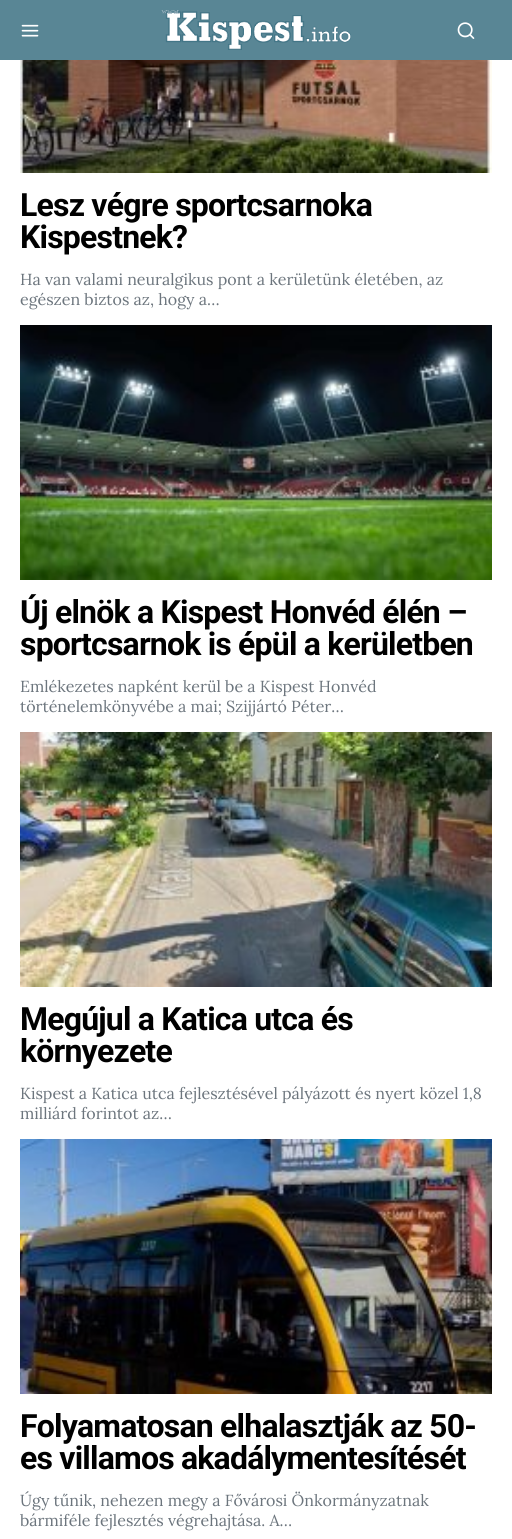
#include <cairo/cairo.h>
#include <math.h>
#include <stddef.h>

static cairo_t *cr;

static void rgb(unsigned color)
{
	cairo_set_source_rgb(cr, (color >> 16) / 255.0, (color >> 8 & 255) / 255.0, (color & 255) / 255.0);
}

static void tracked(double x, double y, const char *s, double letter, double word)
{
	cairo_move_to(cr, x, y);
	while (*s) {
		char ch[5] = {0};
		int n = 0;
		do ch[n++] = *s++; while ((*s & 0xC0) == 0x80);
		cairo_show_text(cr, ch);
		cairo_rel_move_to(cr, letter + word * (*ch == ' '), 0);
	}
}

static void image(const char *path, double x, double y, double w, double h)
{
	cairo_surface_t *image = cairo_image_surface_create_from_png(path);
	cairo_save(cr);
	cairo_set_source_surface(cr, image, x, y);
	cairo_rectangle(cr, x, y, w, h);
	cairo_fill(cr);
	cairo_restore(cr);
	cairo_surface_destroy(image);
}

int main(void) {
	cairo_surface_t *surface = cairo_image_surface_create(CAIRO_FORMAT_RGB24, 512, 1539);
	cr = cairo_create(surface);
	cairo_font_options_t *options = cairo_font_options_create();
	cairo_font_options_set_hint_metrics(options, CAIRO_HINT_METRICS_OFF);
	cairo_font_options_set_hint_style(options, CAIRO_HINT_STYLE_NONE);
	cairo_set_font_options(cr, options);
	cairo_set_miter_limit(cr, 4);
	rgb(0xffffff);
	cairo_paint(cr);
	rgb(0x598695);
	cairo_rectangle(cr, 0, 0, 512, 60);
	cairo_fill(cr);
	image("img/1.png", 21, 24, 18, 13);
	image("img/2.png", 161, 10, 190, 40);
	image("img/3.png", 457, 22, 18, 17);
	image("img/4.png", 20, 60, 472, 113);
	image("img/5.png", 20, 325, 472, 255);
	image("img/6.png", 20, 732, 472, 255);
	image("img/7.png", 20, 1139, 472, 255);
	cairo_select_font_face(cr, "Roboto", CAIRO_FONT_SLANT_NORMAL, CAIRO_FONT_WEIGHT_BOLD);
	cairo_set_font_size(cr, 32);
	rgb(0x000000);
	tracked(20, 216, "Lesz végre sportcsarnoka", -0.8, 0);
	tracked(20, 248, "Kispestnek?", -0.8, 0);
	cairo_select_font_face(cr, "Lora", CAIRO_FONT_SLANT_NORMAL, CAIRO_FONT_WEIGHT_NORMAL);
	cairo_set_font_size(cr, 16);
	rgb(0x6c757d);
	cairo_move_to(cr, 20, 285);
	cairo_show_text(cr, "Ha van valami neuralgikus pont a kerületünk életében, az");
	cairo_move_to(cr, 20, 305);
	cairo_show_text(cr, "egészen biztos az, hogy a…");
	cairo_select_font_face(cr, "Roboto", CAIRO_FONT_SLANT_NORMAL, CAIRO_FONT_WEIGHT_BOLD);
	cairo_set_font_size(cr, 32);
	rgb(0x000000);
	tracked(20, 623, "Új elnök a Kispest Honvéd élén –", -0.8, 0);
	tracked(20, 655, "sportcsarnok is épül a kerületben", -0.8, 0);
	cairo_select_font_face(cr, "Lora", CAIRO_FONT_SLANT_NORMAL, CAIRO_FONT_WEIGHT_NORMAL);
	cairo_set_font_size(cr, 16);
	rgb(0x6c757d);
	cairo_move_to(cr, 20, 692);
	cairo_show_text(cr, "Emlékezetes napként kerül be a Kispest Honvéd");
	cairo_move_to(cr, 20, 712);
	cairo_show_text(cr, "történelemkönyvébe a mai; Szijjártó Péter…");
	cairo_select_font_face(cr, "Roboto", CAIRO_FONT_SLANT_NORMAL, CAIRO_FONT_WEIGHT_BOLD);
	cairo_set_font_size(cr, 32);
	rgb(0x000000);
	tracked(20, 1030, "Megújul a Katica utca és", -0.8, 0);
	tracked(20, 1062, "környezete", -0.8, 0);
	cairo_select_font_face(cr, "Lora", CAIRO_FONT_SLANT_NORMAL, CAIRO_FONT_WEIGHT_NORMAL);
	cairo_set_font_size(cr, 16);
	rgb(0x6c757d);
	cairo_move_to(cr, 20, 1099);
	cairo_show_text(cr, "Kispest a Katica utca fejlesztésével pályázott és nyert közel 1,8");
	cairo_move_to(cr, 20, 1119);
	cairo_show_text(cr, "milliárd forintot az…");
	cairo_select_font_face(cr, "Roboto", CAIRO_FONT_SLANT_NORMAL, CAIRO_FONT_WEIGHT_BOLD);
	cairo_set_font_size(cr, 32);
	rgb(0x000000);
	tracked(20, 1437, "Folyamatosan elhalasztják az 50-", -0.8, 0);
	tracked(20, 1469, "es villamos akadálymentesítését", -0.8, 0);
	cairo_select_font_face(cr, "Lora", CAIRO_FONT_SLANT_NORMAL, CAIRO_FONT_WEIGHT_NORMAL);
	cairo_set_font_size(cr, 16);
	rgb(0x6c757d);
	cairo_move_to(cr, 20, 1506);
	cairo_show_text(cr, "Úgy tűnik, nehezen megy a Fővárosi Önkormányzatnak");
	cairo_move_to(cr, 20, 1526);
	cairo_show_text(cr, "bármiféle fejlesztés végrehajtása. A…");
	cairo_surface_write_to_png(surface, "page.png");
	cairo_font_options_destroy(options);
	cairo_destroy(cr);
	cairo_surface_destroy(surface);
	return 0;
}
